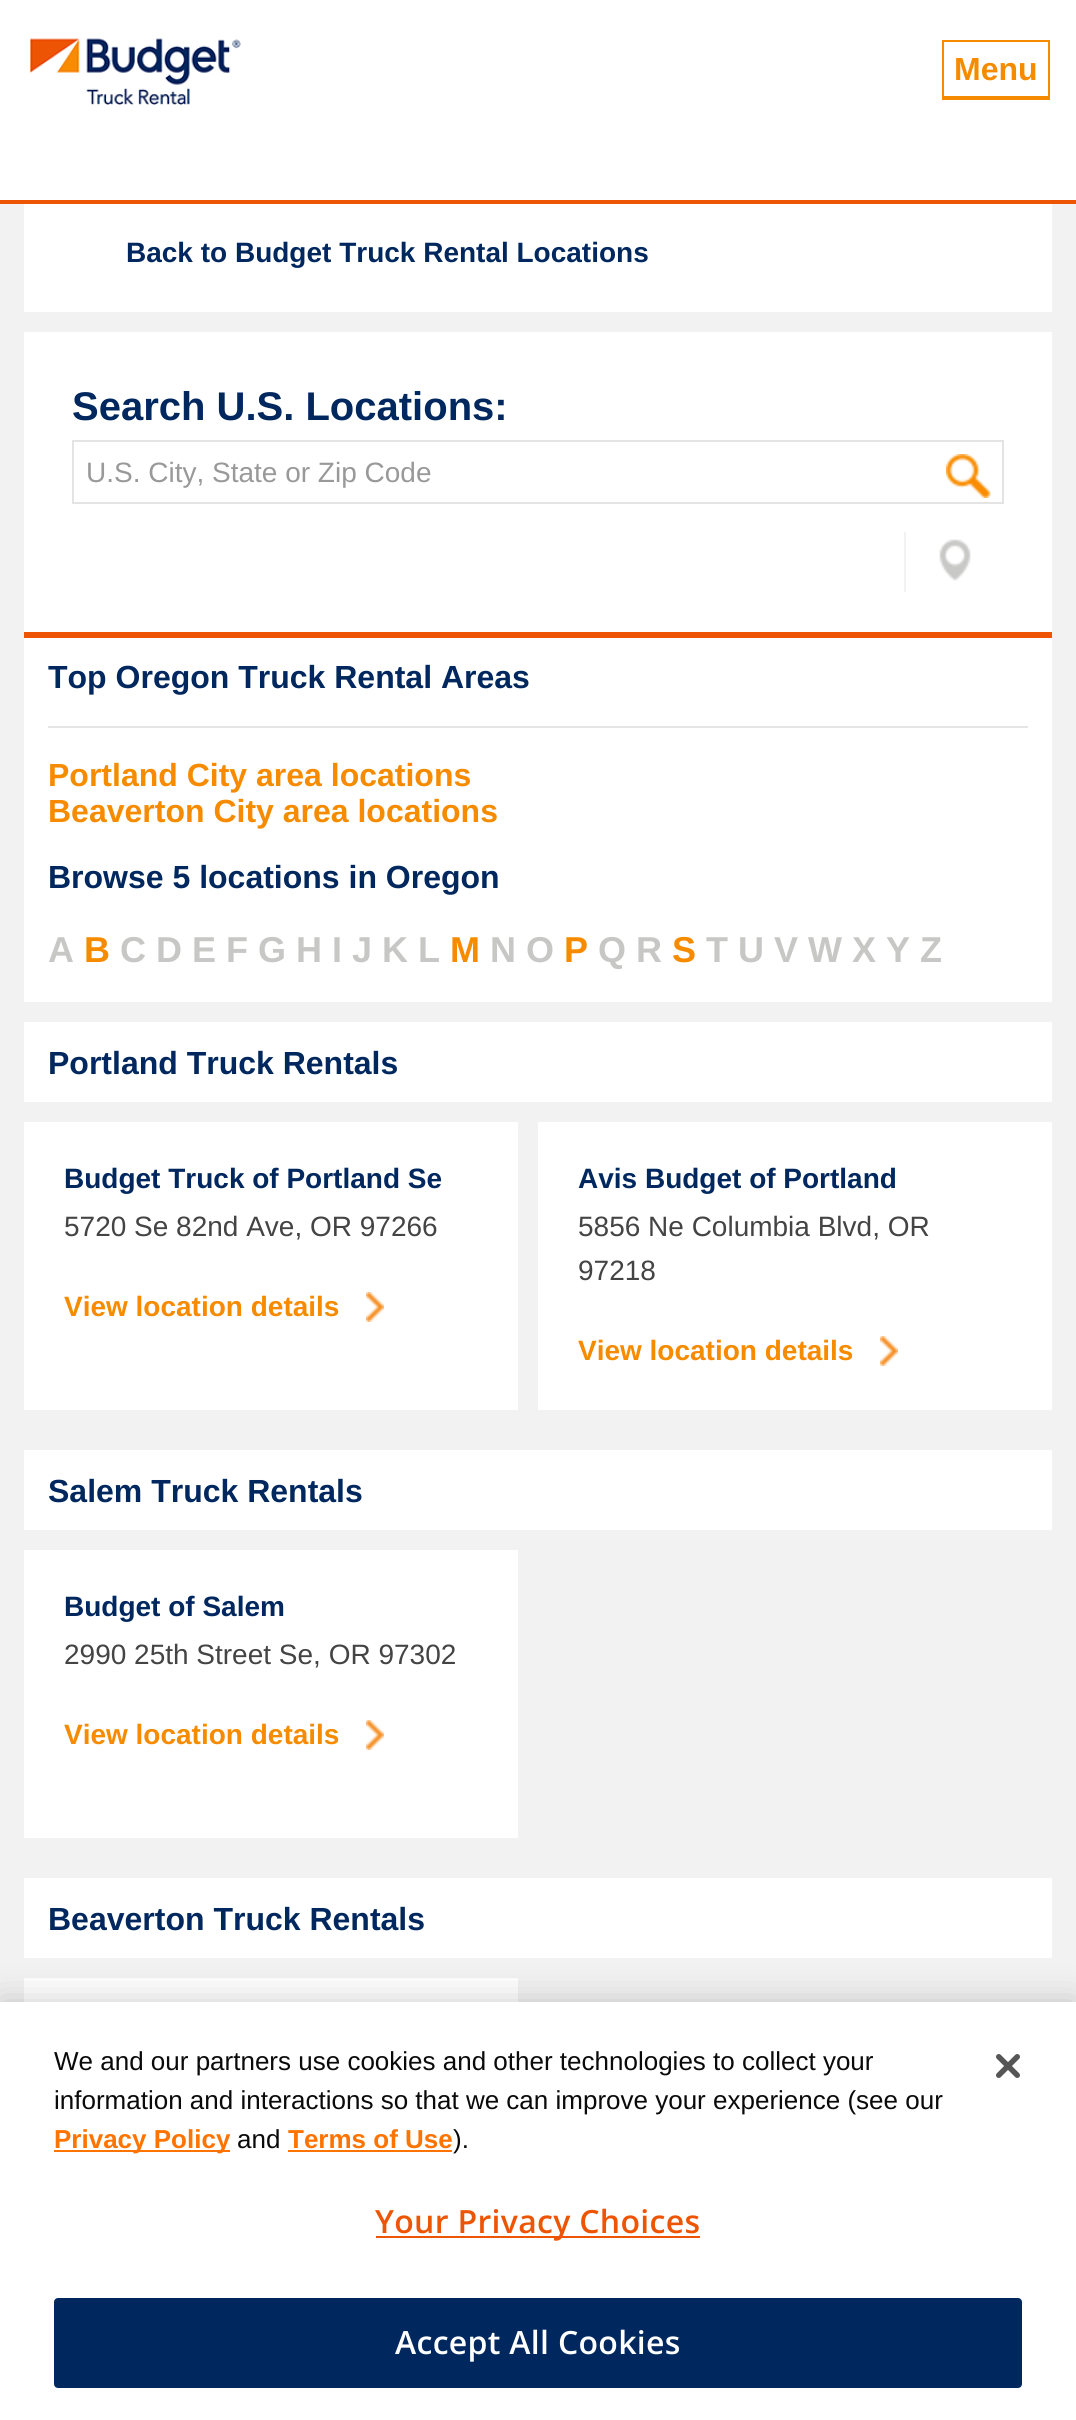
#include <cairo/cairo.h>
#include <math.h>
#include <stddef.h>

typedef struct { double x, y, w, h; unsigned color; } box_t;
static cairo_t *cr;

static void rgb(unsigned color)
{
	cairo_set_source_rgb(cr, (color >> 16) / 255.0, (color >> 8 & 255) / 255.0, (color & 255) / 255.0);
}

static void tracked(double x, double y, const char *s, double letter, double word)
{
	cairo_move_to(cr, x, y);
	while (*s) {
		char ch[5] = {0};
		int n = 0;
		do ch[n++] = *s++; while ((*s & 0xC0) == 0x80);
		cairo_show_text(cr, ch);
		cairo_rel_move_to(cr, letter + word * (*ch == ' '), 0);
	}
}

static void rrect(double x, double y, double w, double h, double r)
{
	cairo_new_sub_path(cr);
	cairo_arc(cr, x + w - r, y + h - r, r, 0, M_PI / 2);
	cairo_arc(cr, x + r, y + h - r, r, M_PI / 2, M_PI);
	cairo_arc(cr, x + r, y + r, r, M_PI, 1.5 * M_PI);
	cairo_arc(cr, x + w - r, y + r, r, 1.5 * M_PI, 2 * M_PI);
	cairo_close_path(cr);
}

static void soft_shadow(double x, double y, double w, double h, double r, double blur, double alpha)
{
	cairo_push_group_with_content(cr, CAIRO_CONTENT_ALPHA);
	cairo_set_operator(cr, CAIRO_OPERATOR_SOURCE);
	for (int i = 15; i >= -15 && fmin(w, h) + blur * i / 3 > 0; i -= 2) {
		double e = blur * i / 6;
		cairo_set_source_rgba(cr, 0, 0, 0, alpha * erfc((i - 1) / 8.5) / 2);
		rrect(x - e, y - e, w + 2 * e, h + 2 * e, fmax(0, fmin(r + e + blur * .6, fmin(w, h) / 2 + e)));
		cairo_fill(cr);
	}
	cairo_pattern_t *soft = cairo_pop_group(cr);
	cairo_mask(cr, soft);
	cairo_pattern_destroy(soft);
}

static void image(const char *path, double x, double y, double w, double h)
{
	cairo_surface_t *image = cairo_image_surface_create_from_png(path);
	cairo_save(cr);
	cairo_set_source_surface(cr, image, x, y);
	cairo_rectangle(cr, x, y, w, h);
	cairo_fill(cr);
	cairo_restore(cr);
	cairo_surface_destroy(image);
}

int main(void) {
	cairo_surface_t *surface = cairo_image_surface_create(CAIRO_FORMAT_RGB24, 1076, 2420);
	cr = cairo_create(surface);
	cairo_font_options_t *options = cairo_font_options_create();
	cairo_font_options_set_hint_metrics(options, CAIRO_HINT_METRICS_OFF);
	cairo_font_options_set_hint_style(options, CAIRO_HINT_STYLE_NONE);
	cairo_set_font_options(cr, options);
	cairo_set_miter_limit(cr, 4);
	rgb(0xffffff);
	cairo_paint(cr);
	image("img/1.png", 30, 38, 211, 67);
	{
		static const box_t items[] = {
			{942, 40, 108, 2, 0xf78b00},
			{1048, 40, 2, 60, 0xf78b00},
			{942, 96, 108, 4, 0xf78b00},
			{942, 40, 2, 60, 0xf78b00},
			{0, 204, 1076, 1798, 0xf2f2f2},
			{0, 200, 1076, 4, 0xed5505},
			{24, 204, 1028, 798, 0xffffff},
			{24, 312, 1028, 20, 0xf2f2f2},
			{24, 632, 1028, 6, 0xed5404},
		};
		for (size_t i = 0; i < sizeof items / sizeof *items; i++) {
			rgb(items[i].color);
			cairo_rectangle(cr, items[i].x, items[i].y, items[i].w, items[i].h);
			cairo_fill(cr);
		}
	}
	cairo_rectangle(cr, 73, 441, 930, 62);
	rgb(0xe5e4e4);
	cairo_stroke(cr);
	image("img/2.png", 946, 454, 45, 44);
	image("img/3.png", 939, 539, 32, 42);
	{
		static const box_t items[] = {
			{904, 532, 2, 60, 0xf2f2f2},
			{48, 726, 980, 2, 0xe5e5e5},
			{24, 1022, 1028, 80, 0xffffff},
			{24, 1122, 494, 288, 0xffffff},
		};
		for (size_t i = 0; i < sizeof items / sizeof *items; i++) {
			rgb(items[i].color);
			cairo_rectangle(cr, items[i].x, items[i].y, items[i].w, items[i].h);
			cairo_fill(cr);
		}
	}
	image("img/4.png", 366, 1292, 18, 30);
	cairo_rectangle(cr, 538, 1122, 514, 288);
	cairo_fill(cr);
	image("img/4.png", 880, 1336, 18, 30);
	cairo_rectangle(cr, 24, 1450, 1028, 80);
	cairo_fill(cr);
	cairo_rectangle(cr, 24, 1550, 494, 288);
	cairo_fill(cr);
	image("img/4.png", 366, 1720, 18, 30);
	cairo_rectangle(cr, 24, 1878, 1028, 80);
	cairo_fill(cr);
	cairo_rectangle(cr, 24, 1978, 494, 24);
	cairo_fill(cr);
	rgb(0x000000);
	soft_shadow(0, 2002, 1076, 418, 0, 18, 0.2);
	{
		static const box_t items[] = {
			{0, 2002, 1076, 418, 0xffffff},
			{54, 2150, 176, 2, 0xff7300},
			{288, 2150, 164, 2, 0xff7300},
			{376, 2236, 324, 2, 0xed5505},
		};
		for (size_t i = 0; i < sizeof items / sizeof *items; i++) {
			rgb(items[i].color);
			cairo_rectangle(cr, items[i].x, items[i].y, items[i].w, items[i].h);
			cairo_fill(cr);
		}
	}
	rgb(0x00285f);
	rrect(55, 2299, 966, 88, 3);
	cairo_fill_preserve(cr);
	cairo_stroke(cr);
	image("img/5.png", 996, 2054, 24, 24);
	cairo_select_font_face(cr, "Liberation Sans", CAIRO_FONT_SLANT_NORMAL, CAIRO_FONT_WEIGHT_BOLD);
	cairo_set_font_size(cr, 32);
	rgb(0xf78b00);
	cairo_move_to(cr, 954, 80);
	cairo_show_text(cr, "Menu");
	cairo_set_font_size(cr, 28);
	rgb(0x00285f);
	cairo_move_to(cr, 126, 262);
	cairo_show_text(cr, "Back to Budget Truck Rental Locations");
	cairo_set_font_size(cr, 40);
	cairo_move_to(cr, 72, 420);
	cairo_show_text(cr, "Search U.S. Locations:");
	cairo_select_font_face(cr, "Liberation Sans", CAIRO_FONT_SLANT_NORMAL, CAIRO_FONT_WEIGHT_NORMAL);
	cairo_set_font_size(cr, 28);
	rgb(0x999999);
	cairo_move_to(cr, 86, 482);
	cairo_show_text(cr, "U.S. City, State or Zip Code");
	cairo_select_font_face(cr, "Liberation Sans", CAIRO_FONT_SLANT_NORMAL, CAIRO_FONT_WEIGHT_BOLD);
	cairo_set_font_size(cr, 32);
	rgb(0x00285f);
	cairo_move_to(cr, 48, 688);
	cairo_show_text(cr, "Top Oregon Truck Rental Areas");
	rgb(0xf78b00);
	cairo_move_to(cr, 48, 786);
	cairo_show_text(cr, "Portland City area locations");
	cairo_move_to(cr, 48, 822);
	cairo_show_text(cr, "Beaverton City area locations");
	rgb(0x00285f);
	cairo_move_to(cr, 48, 888);
	cairo_show_text(cr, "Browse 5 locations in Oregon");
	cairo_set_font_size(cr, 36);
	rgb(0xc7c8c6);
	cairo_move_to(cr, 48, 962);
	cairo_show_text(cr, "A");
	rgb(0xf78b00);
	cairo_move_to(cr, 84, 962);
	cairo_show_text(cr, "B");
	rgb(0xc7c8c6);
	cairo_move_to(cr, 120, 962);
	cairo_show_text(cr, "C D E F G H I J K L");
	rgb(0xf78b00);
	cairo_move_to(cr, 450, 962);
	cairo_show_text(cr, "M");
	rgb(0xc7c8c6);
	cairo_move_to(cr, 490, 962);
	cairo_show_text(cr, "N O");
	rgb(0xf78b00);
	cairo_move_to(cr, 564, 962);
	cairo_show_text(cr, "P");
	rgb(0xc7c8c6);
	cairo_move_to(cr, 598, 962);
	cairo_show_text(cr, "Q R");
	rgb(0xf78b00);
	cairo_move_to(cr, 672, 962);
	cairo_show_text(cr, "S");
	rgb(0xc7c8c6);
	cairo_move_to(cr, 706, 962);
	cairo_show_text(cr, "T U V W X Y Z");
	cairo_set_font_size(cr, 32);
	rgb(0x00285f);
	cairo_move_to(cr, 48, 1074);
	cairo_show_text(cr, "Portland Truck Rentals");
	cairo_set_font_size(cr, 28);
	cairo_move_to(cr, 64, 1188);
	cairo_show_text(cr, "Budget Truck of Portland Se");
	cairo_select_font_face(cr, "Liberation Sans", CAIRO_FONT_SLANT_NORMAL, CAIRO_FONT_WEIGHT_NORMAL);
	rgb(0x444444);
	cairo_move_to(cr, 64, 1236);
	cairo_show_text(cr, "5720 Se 82nd Ave, OR 97266");
	cairo_select_font_face(cr, "Liberation Sans", CAIRO_FONT_SLANT_NORMAL, CAIRO_FONT_WEIGHT_BOLD);
	rgb(0xf78b00);
	cairo_move_to(cr, 64, 1316);
	cairo_show_text(cr, "View location details");
	rgb(0x00285f);
	cairo_move_to(cr, 578, 1188);
	cairo_show_text(cr, "Avis Budget of Portland");
	cairo_select_font_face(cr, "Liberation Sans", CAIRO_FONT_SLANT_NORMAL, CAIRO_FONT_WEIGHT_NORMAL);
	rgb(0x444444);
	cairo_move_to(cr, 578, 1236);
	cairo_show_text(cr, "5856 Ne Columbia Blvd, OR");
	cairo_move_to(cr, 578, 1280);
	cairo_show_text(cr, "97218");
	cairo_select_font_face(cr, "Liberation Sans", CAIRO_FONT_SLANT_NORMAL, CAIRO_FONT_WEIGHT_BOLD);
	rgb(0xf78b00);
	cairo_move_to(cr, 578, 1360);
	cairo_show_text(cr, "View location details");
	cairo_set_font_size(cr, 32);
	rgb(0x00285f);
	cairo_move_to(cr, 48, 1502);
	cairo_show_text(cr, "Salem Truck Rentals");
	cairo_set_font_size(cr, 28);
	cairo_move_to(cr, 64, 1616);
	cairo_show_text(cr, "Budget of Salem");
	cairo_select_font_face(cr, "Liberation Sans", CAIRO_FONT_SLANT_NORMAL, CAIRO_FONT_WEIGHT_NORMAL);
	rgb(0x444444);
	cairo_move_to(cr, 64, 1664);
	cairo_show_text(cr, "2990 25th Street Se, OR 97302");
	cairo_select_font_face(cr, "Liberation Sans", CAIRO_FONT_SLANT_NORMAL, CAIRO_FONT_WEIGHT_BOLD);
	rgb(0xf78b00);
	cairo_move_to(cr, 64, 1744);
	cairo_show_text(cr, "View location details");
	cairo_set_font_size(cr, 32);
	rgb(0x00285f);
	cairo_move_to(cr, 48, 1930);
	cairo_show_text(cr, "Beaverton Truck Rentals");
	cairo_select_font_face(cr, "Liberation Sans", CAIRO_FONT_SLANT_NORMAL, CAIRO_FONT_WEIGHT_NORMAL);
	cairo_set_font_size(cr, 26);
	rgb(0x0a0a0a);
	cairo_move_to(cr, 54, 2070);
	cairo_show_text(cr, "We and our partners use cookies and other technologies to collect your");
	cairo_move_to(cr, 54, 2109);
	cairo_show_text(cr, "information and interactions so that we can improve your experience (see our");
	cairo_select_font_face(cr, "Liberation Sans", CAIRO_FONT_SLANT_NORMAL, CAIRO_FONT_WEIGHT_BOLD);
	rgb(0xff7300);
	cairo_move_to(cr, 54, 2148);
	cairo_show_text(cr, "Privacy Policy");
	cairo_select_font_face(cr, "Liberation Sans", CAIRO_FONT_SLANT_NORMAL, CAIRO_FONT_WEIGHT_NORMAL);
	rgb(0x0a0a0a);
	cairo_move_to(cr, 237, 2148);
	cairo_show_text(cr, "and");
	cairo_select_font_face(cr, "Liberation Sans", CAIRO_FONT_SLANT_NORMAL, CAIRO_FONT_WEIGHT_BOLD);
	rgb(0xff7300);
	cairo_move_to(cr, 288, 2148);
	cairo_show_text(cr, "Terms of Use");
	cairo_select_font_face(cr, "Liberation Sans", CAIRO_FONT_SLANT_NORMAL, CAIRO_FONT_WEIGHT_NORMAL);
	rgb(0x0a0a0a);
	cairo_move_to(cr, 453, 2148);
	cairo_show_text(cr, ").");
	cairo_select_font_face(cr, "Open Sans SemiBold", CAIRO_FONT_SLANT_NORMAL, CAIRO_FONT_WEIGHT_NORMAL);
	cairo_set_font_size(cr, 32);
	rgb(0xed5505);
	tracked(375, 2233, "Your Privacy Choices", 0.3, 0);
	rgb(0xffffff);
	tracked(395, 2354, "Accept All Cookies", 0.3, 0);
	cairo_surface_write_to_png(surface, "page.png");
	cairo_font_options_destroy(options);
	cairo_destroy(cr);
	cairo_surface_destroy(surface);
	return 0;
}
